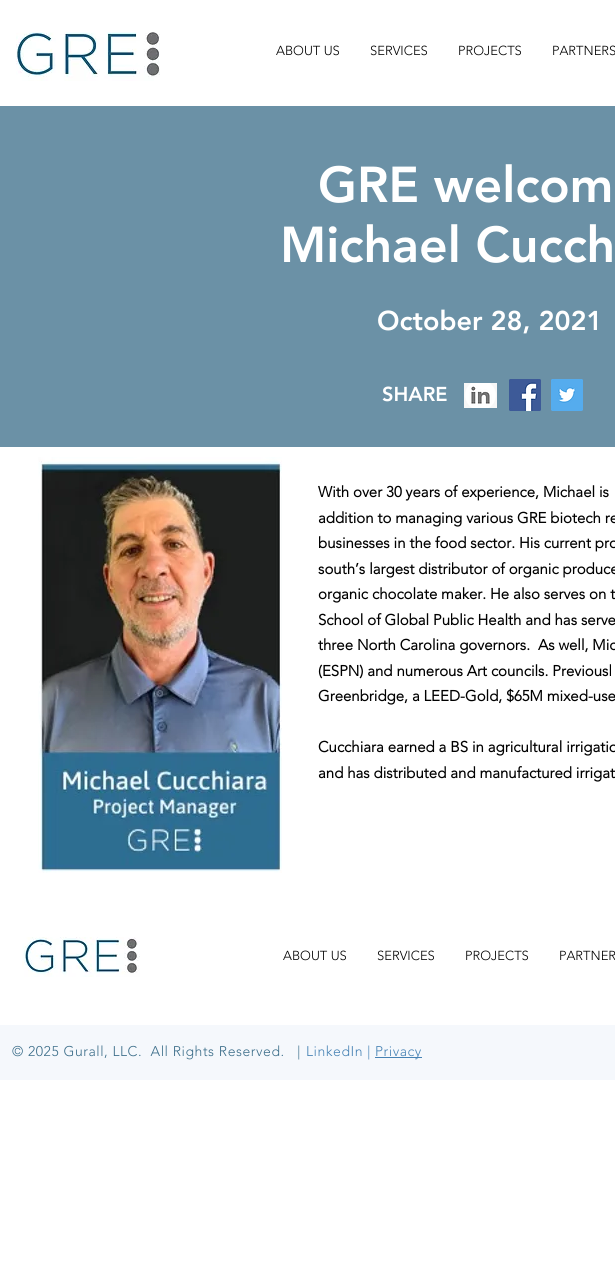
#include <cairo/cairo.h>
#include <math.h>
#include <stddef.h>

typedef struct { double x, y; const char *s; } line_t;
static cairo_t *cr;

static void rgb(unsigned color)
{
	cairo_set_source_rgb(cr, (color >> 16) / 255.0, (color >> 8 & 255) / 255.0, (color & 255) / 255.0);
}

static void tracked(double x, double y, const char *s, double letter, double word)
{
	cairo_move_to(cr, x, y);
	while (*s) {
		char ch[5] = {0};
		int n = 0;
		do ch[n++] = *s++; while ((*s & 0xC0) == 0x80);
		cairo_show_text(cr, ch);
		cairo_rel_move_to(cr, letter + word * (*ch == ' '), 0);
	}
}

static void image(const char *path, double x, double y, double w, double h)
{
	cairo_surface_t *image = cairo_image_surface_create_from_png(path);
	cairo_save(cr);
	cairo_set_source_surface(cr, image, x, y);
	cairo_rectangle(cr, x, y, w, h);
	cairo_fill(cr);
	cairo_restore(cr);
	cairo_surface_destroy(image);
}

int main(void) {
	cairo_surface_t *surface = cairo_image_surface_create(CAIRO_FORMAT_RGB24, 615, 1272);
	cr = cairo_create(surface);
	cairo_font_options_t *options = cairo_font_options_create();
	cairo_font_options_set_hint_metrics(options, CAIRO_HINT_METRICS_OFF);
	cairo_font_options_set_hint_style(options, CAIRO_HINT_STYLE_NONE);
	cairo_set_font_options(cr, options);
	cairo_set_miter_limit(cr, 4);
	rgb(0xffffff);
	cairo_paint(cr);
	image("img/1.png", 16, 32, 144, 49);
	rgb(0x6b91a6);
	cairo_rectangle(cr, 0, 106, 615, 341);
	cairo_fill(cr);
	image("img/2.png", 464, 383, 33, 25);
	image("img/3.png", 509, 379, 32, 32);
	image("img/4.png", 551, 379, 32, 32);
	image("img/5.png", 38, 457, 244, 416);
	image("img/6.png", 22, 937, 118, 40);
	rgb(0xf5f8fc);
	cairo_rectangle(cr, 0, 1025, 615, 55);
	cairo_fill(cr);
	rgb(0x4682b4);
	cairo_rectangle(cr, 375, 1057, 47, 1);
	cairo_fill(cr);
	cairo_select_font_face(cr, "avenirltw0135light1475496 Light", CAIRO_FONT_SLANT_NORMAL, CAIRO_FONT_WEIGHT_NORMAL);
	cairo_set_font_size(cr, 13);
	rgb(0x000000);
	{
		static const line_t items[] = {
			{276, 55, "ABOUT US"},
			{370, 55, "SERVICES"},
			{458, 55, "PROJECTS"},
			{552, 55, "PARTNERS"},
		};
		for (size_t i = 0; i < sizeof items / sizeof *items; i++) {
			cairo_move_to(cr, items[i].x, items[i].y);
			cairo_show_text(cr, items[i].s);
		}
	}
	cairo_select_font_face(cr, "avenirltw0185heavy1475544 Black", CAIRO_FONT_SLANT_NORMAL, CAIRO_FONT_WEIGHT_NORMAL);
	cairo_set_font_size(cr, 50);
	rgb(0xffffff);
	cairo_move_to(cr, 318, 202);
	cairo_show_text(cr, "GRE welcom");
	cairo_move_to(cr, 280, 262);
	cairo_show_text(cr, "Michael Cucch");
	cairo_set_font_size(cr, 27);
	cairo_move_to(cr, 377, 330);
	cairo_show_text(cr, "October 28, 2021");
	cairo_set_font_size(cr, 20);
	cairo_move_to(cr, 382, 401);
	cairo_show_text(cr, "SHARE");
	cairo_select_font_face(cr, "avenirltw0135light1475496", CAIRO_FONT_SLANT_NORMAL, CAIRO_FONT_WEIGHT_BOLD);
	cairo_set_font_size(cr, 15);
	rgb(0x000000);
	{
		static const line_t items[] = {
			{318, 497, "With over 30 years of experience, Michael is"},
			{318, 523, "addition to managing various GRE biotech re"},
			{318, 548, "businesses in the food sector. His current pro"},
			{318, 574, "south’s largest distributor of organic produce"},
			{318, 599, "organic chocolate maker. He also serves on t"},
			{318, 625, "School of Global Public Health and has serve"},
			{318, 650, "three North Carolina governors.  As well, Mic"},
			{318, 676, "(ESPN) and numerous Art councils. Previousl"},
			{318, 701, "Greenbridge, a LEED-Gold, $65M mixed-use"},
			{318, 752, "Cucchiara earned a BS in agricultural irrigatio"},
			{318, 778, "and has distributed and manufactured irrigat"},
		};
		for (size_t i = 0; i < sizeof items / sizeof *items; i++) {
			cairo_move_to(cr, items[i].x, items[i].y);
			cairo_show_text(cr, items[i].s);
		}
	}
	cairo_select_font_face(cr, "avenirltw0135light1475496 Light", CAIRO_FONT_SLANT_NORMAL, CAIRO_FONT_WEIGHT_NORMAL);
	cairo_set_font_size(cr, 13);
	{
		static const line_t items[] = {
			{283, 960, "ABOUT US"},
			{377, 960, "SERVICES"},
			{465, 960, "PROJECTS"},
			{559, 960, "PARTNER"},
		};
		for (size_t i = 0; i < sizeof items / sizeof *items; i++) {
			cairo_move_to(cr, items[i].x, items[i].y);
			cairo_show_text(cr, items[i].s);
		}
	}
	cairo_set_font_size(cr, 14);
	rgb(0x3b6d89);
	tracked(12, 1056, "© 2025 Gurall, LLC.  All Rights Reserved.   |", 0.55, 0);
	rgb(0x4682b4);
	tracked(306, 1056, "LinkedIn |", 0.55, 0);
	tracked(375, 1056, "Privacy", 0.55, 0);
	cairo_surface_write_to_png(surface, "page.png");
	cairo_font_options_destroy(options);
	cairo_destroy(cr);
	cairo_surface_destroy(surface);
	return 0;
}
